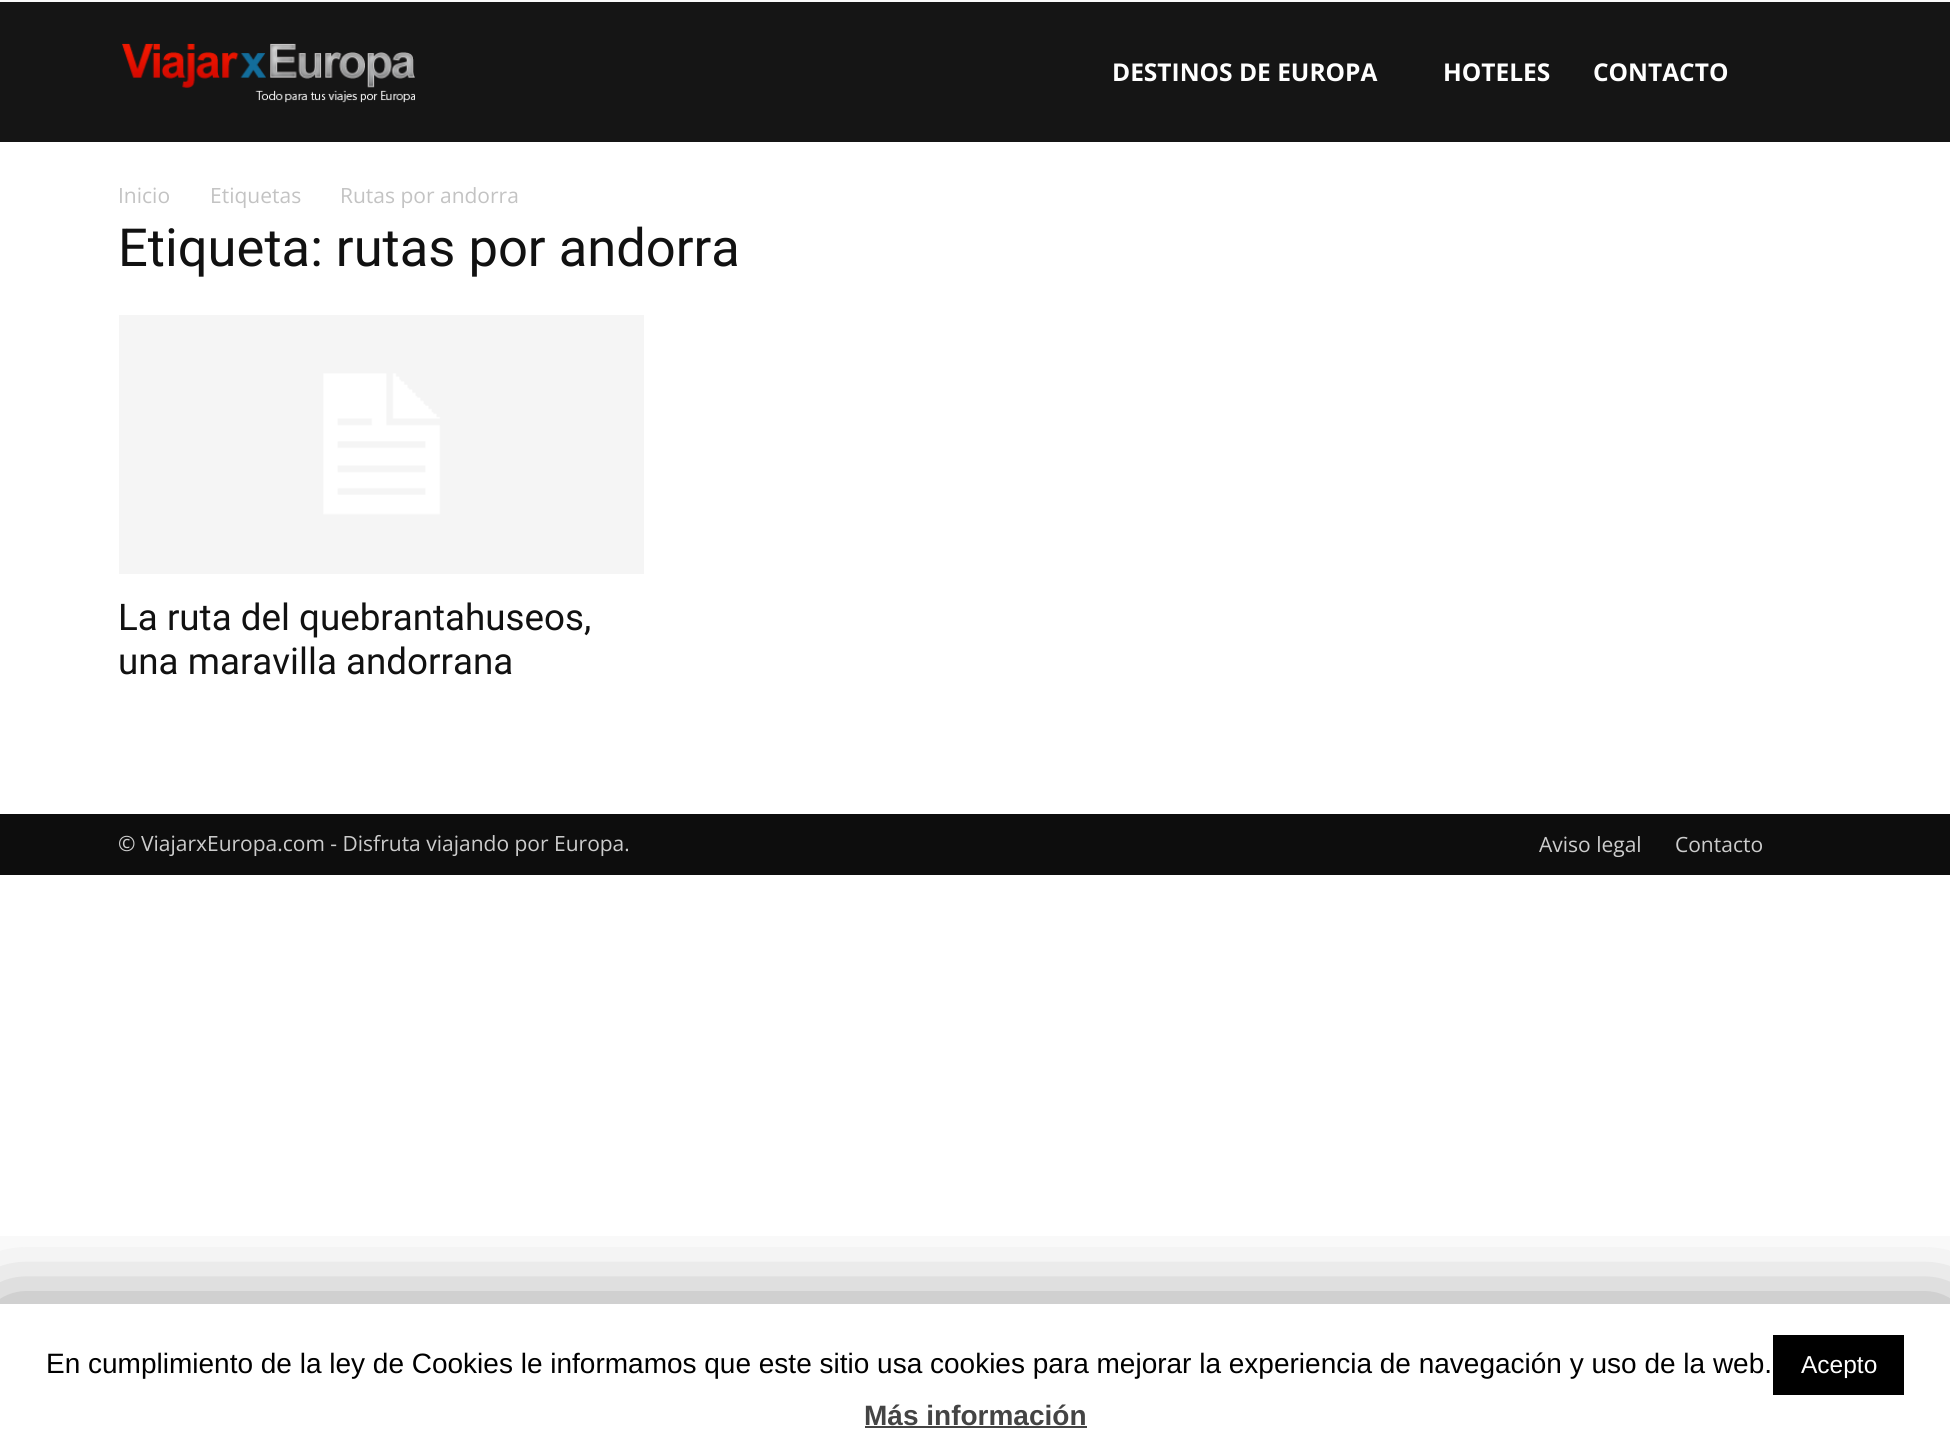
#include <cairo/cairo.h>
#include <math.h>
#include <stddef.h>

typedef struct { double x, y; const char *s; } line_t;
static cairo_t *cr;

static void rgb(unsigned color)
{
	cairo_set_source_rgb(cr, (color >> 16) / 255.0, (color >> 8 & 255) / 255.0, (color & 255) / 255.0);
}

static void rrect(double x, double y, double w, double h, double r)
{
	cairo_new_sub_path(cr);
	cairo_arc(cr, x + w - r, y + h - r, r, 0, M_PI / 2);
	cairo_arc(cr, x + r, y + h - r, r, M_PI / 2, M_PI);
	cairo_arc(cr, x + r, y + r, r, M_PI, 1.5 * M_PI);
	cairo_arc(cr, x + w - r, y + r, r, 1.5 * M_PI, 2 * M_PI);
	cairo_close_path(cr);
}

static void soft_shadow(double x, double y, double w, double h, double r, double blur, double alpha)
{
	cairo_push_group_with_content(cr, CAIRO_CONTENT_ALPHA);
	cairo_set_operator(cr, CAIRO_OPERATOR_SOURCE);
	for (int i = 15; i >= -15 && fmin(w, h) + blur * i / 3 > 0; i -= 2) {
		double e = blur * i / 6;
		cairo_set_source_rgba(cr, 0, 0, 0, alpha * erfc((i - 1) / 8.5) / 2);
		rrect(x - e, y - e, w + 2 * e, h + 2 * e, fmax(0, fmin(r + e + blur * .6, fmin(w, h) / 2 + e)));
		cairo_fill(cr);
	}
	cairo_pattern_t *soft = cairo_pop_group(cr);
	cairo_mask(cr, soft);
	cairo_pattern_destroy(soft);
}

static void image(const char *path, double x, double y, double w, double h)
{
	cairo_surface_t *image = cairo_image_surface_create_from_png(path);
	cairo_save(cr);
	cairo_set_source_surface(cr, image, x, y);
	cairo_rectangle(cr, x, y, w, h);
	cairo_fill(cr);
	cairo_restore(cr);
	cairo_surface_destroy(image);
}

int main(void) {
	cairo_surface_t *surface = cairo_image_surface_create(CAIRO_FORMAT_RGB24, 1950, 1456);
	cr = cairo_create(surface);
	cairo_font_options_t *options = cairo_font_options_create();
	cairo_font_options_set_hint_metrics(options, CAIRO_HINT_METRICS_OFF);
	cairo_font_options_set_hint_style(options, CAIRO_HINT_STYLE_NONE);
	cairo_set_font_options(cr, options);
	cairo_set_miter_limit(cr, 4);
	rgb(0xffffff);
	cairo_paint(cr);
	rgb(0xf9f9f9);
	cairo_rectangle(cr, 0, 0, 1950, 2);
	cairo_fill(cr);
	rgb(0x151515);
	cairo_rectangle(cr, 0, 2, 1950, 140);
	cairo_fill(cr);
	image("img/1.png", 122, 43, 293, 60);
	image("img/2.png", 119, 315, 525, 259);
	rgb(0x0d0d0d);
	cairo_rectangle(cr, 0, 814, 1950, 61);
	cairo_fill(cr);
	cairo_save(cr);
	cairo_rectangle(cr, 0, 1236, 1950, 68);
	cairo_clip(cr);
	rgb(0x000000);
	soft_shadow(0, 1313, 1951, 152, 0, 44, 0.5);
	cairo_restore(cr);
	rgb(0x000000);
	cairo_rectangle(cr, 1773, 1335, 131, 60);
	cairo_fill(cr);
	rgb(0x444444);
	cairo_rectangle(cr, 865, 1426, 222, 2);
	cairo_fill(cr);
	cairo_select_font_face(cr, "Open Sans", CAIRO_FONT_SLANT_NORMAL, CAIRO_FONT_WEIGHT_BOLD);
	cairo_set_font_size(cr, 24.5);
	rgb(0xffffff);
	{
		static const line_t items[] = {
			{1112, 81, "DESTINOS DE EUROPA"},
			{1443, 81, "HOTELES"},
			{1593, 81, "CONTACTO"},
		};
		for (size_t i = 0; i < sizeof items / sizeof *items; i++) {
			cairo_move_to(cr, items[i].x, items[i].y);
			cairo_show_text(cr, items[i].s);
		}
	}
	cairo_select_font_face(cr, "Open Sans", CAIRO_FONT_SLANT_NORMAL, CAIRO_FONT_WEIGHT_NORMAL);
	cairo_set_font_size(cr, 21);
	rgb(0xc3c3c3);
	{
		static const line_t items[] = {
			{118, 203, "Inicio"},
			{210, 203, "Etiquetas"},
			{340, 203, "Rutas por andorra"},
		};
		for (size_t i = 0; i < sizeof items / sizeof *items; i++) {
			cairo_move_to(cr, items[i].x, items[i].y);
			cairo_show_text(cr, items[i].s);
		}
	}
	cairo_select_font_face(cr, "Roboto", CAIRO_FONT_SLANT_NORMAL, CAIRO_FONT_WEIGHT_NORMAL);
	cairo_set_font_size(cr, 52.5);
	rgb(0x111111);
	cairo_move_to(cr, 118, 266);
	cairo_show_text(cr, "Etiqueta: rutas por andorra");
	cairo_set_font_size(cr, 36.75);
	cairo_move_to(cr, 118, 630);
	cairo_show_text(cr, "La ruta del quebrantahuseos,");
	cairo_move_to(cr, 118, 674);
	cairo_show_text(cr, "una maravilla andorrana");
	cairo_select_font_face(cr, "Open Sans", CAIRO_FONT_SLANT_NORMAL, CAIRO_FONT_WEIGHT_NORMAL);
	cairo_set_font_size(cr, 21);
	rgb(0xcccccc);
	{
		static const line_t items[] = {
			{118, 851, "© ViajarxEuropa.com - Disfruta viajando por Europa."},
			{1539, 852, "Aviso legal"},
			{1675, 852, "Contacto"},
		};
		for (size_t i = 0; i < sizeof items / sizeof *items; i++) {
			cairo_move_to(cr, items[i].x, items[i].y);
			cairo_show_text(cr, items[i].s);
		}
	}
	cairo_select_font_face(cr, "Liberation Sans", CAIRO_FONT_SLANT_NORMAL, CAIRO_FONT_WEIGHT_NORMAL);
	cairo_set_font_size(cr, 28);
	rgb(0x000000);
	cairo_move_to(cr, 46, 1373);
	cairo_show_text(cr, "En cumplimiento de la ley de Cookies le informamos que este sitio usa cookies para mejorar la experiencia de navegación y uso de la web.");
	cairo_set_font_size(cr, 24.5);
	rgb(0xffffff);
	cairo_move_to(cr, 1801, 1373);
	cairo_show_text(cr, "Acepto");
	cairo_select_font_face(cr, "Liberation Sans", CAIRO_FONT_SLANT_NORMAL, CAIRO_FONT_WEIGHT_BOLD);
	cairo_set_font_size(cr, 28);
	rgb(0x444444);
	cairo_move_to(cr, 864, 1425);
	cairo_show_text(cr, "Más información");
	cairo_surface_write_to_png(surface, "page.png");
	cairo_font_options_destroy(options);
	cairo_destroy(cr);
	cairo_surface_destroy(surface);
	return 0;
}
